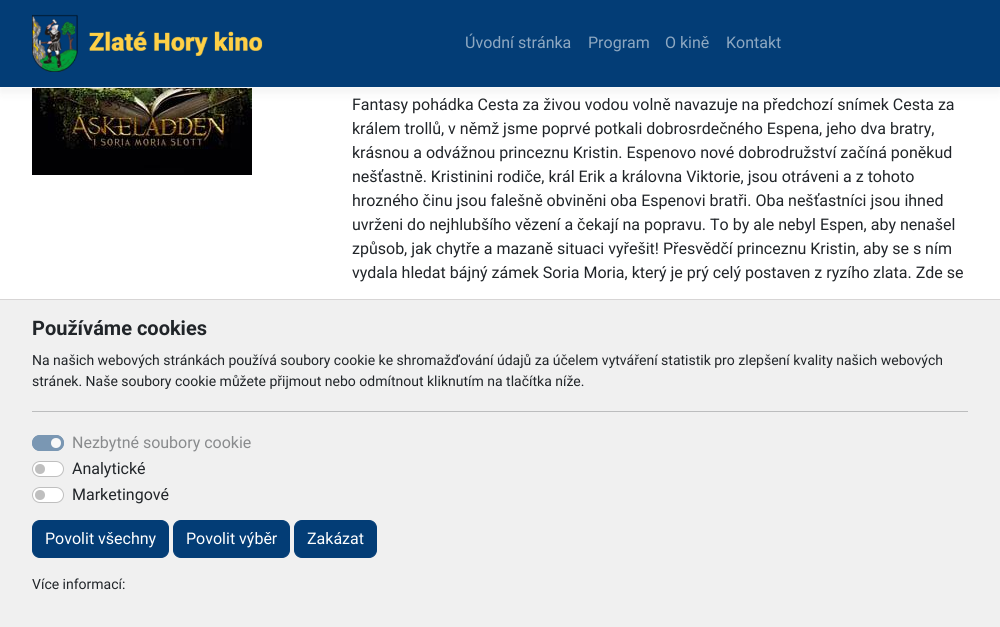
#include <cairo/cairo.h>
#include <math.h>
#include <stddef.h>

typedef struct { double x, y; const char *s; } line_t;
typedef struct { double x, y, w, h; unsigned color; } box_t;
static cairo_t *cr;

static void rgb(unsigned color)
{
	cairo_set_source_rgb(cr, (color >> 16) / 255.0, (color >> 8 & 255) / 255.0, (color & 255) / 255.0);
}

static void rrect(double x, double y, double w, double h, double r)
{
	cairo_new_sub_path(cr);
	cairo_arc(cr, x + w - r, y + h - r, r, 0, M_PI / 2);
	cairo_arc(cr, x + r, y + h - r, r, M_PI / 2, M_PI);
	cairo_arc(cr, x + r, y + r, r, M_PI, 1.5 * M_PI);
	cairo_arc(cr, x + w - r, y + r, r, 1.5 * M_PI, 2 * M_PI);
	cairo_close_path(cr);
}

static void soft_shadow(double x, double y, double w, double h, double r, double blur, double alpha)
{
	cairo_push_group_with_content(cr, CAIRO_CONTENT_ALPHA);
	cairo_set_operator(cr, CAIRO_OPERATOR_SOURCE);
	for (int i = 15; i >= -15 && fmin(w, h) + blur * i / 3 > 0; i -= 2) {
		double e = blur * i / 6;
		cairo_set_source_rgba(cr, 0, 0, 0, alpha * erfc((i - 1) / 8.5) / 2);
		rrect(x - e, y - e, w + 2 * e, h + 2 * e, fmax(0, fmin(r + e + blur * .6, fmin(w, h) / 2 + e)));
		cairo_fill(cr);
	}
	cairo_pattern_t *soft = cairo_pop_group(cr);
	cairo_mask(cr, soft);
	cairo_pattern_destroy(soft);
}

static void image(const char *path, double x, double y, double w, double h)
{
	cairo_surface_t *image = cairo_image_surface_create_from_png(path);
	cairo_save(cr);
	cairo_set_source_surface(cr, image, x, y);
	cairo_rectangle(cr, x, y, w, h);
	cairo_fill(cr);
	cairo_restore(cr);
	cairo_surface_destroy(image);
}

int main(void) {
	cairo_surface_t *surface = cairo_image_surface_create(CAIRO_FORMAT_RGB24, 1000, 627);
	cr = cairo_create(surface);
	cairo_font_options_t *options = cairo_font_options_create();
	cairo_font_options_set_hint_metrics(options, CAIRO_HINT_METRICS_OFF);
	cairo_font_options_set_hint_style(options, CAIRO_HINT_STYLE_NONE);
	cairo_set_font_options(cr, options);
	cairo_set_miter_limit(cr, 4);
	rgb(0xffffff);
	cairo_paint(cr);
	image("img/2.png", 32, 88, 220, 87);
	rgb(0x000000);
	soft_shadow(0, 5, 1000, 88, 0, 5, 0.05);
	rgb(0x033d76);
	cairo_rectangle(cr, 0, 0, 1000, 87);
	cairo_fill(cr);
	rgb(0xf8f9fa);
	cairo_rectangle(cr, 0, 87, 1000, 1);
	cairo_fill(cr);
	image("img/1.png", 32, 14, 231, 58);
	{
		static const box_t items[] = {
			{0, 300, 1000, 327, 0xf0f0f0},
			{0, 299, 1000, 1, 0xd7d5d5},
			{32, 411, 936, 1, 0xbcbdbe},
		};
		for (size_t i = 0; i < sizeof items / sizeof *items; i++) {
			rgb(items[i].color);
			cairo_rectangle(cr, items[i].x, items[i].y, items[i].w, items[i].h);
			cairo_fill(cr);
		}
	}
	rgb(0x7a97b3);
	rrect(32, 435, 32, 16, 8);
	cairo_fill(cr);
	rgb(0xf8f8f8);
	cairo_arc(cr, 56, 443, 5, 0, 2 * M_PI);
	cairo_fill(cr);
	rrect(32.5, 435.5, 31, 15, 7.5);
	rgb(0x7a97b3);
	cairo_set_line_width(cr, 1);
	cairo_stroke(cr);
	rgb(0xffffff);
	rrect(32, 461, 32, 16, 8);
	cairo_fill(cr);
	rgb(0xbfbfbf);
	cairo_arc(cr, 40, 469, 5, 0, 2 * M_PI);
	cairo_fill(cr);
	rrect(32.5, 461.5, 31, 15, 7.5);
	cairo_set_source_rgba(cr, 0, 0, 0, 0.25);
	cairo_stroke(cr);
	rgb(0xffffff);
	rrect(32, 487, 32, 16, 8);
	cairo_fill(cr);
	rgb(0xbfbfbf);
	cairo_arc(cr, 40, 495, 5, 0, 2 * M_PI);
	cairo_fill(cr);
	rrect(32.5, 487.5, 31, 15, 7.5);
	cairo_set_source_rgba(cr, 0, 0, 0, 0.25);
	cairo_stroke(cr);
	rgb(0x033d76);
	rrect(32.5, 520.5, 136, 37, 7.5);
	cairo_fill_preserve(cr);
	cairo_stroke(cr);
	rrect(173.5, 520.5, 116, 37, 7.5);
	cairo_fill_preserve(cr);
	cairo_stroke(cr);
	rrect(294.5, 520.5, 82, 37, 7.5);
	cairo_fill_preserve(cr);
	cairo_stroke(cr);
	cairo_select_font_face(cr, "Roboto", CAIRO_FONT_SLANT_NORMAL, CAIRO_FONT_WEIGHT_NORMAL);
	cairo_set_font_size(cr, 16);
	rgb(0x8ea8c1);
	{
		static const line_t items[] = {
			{465, 48, "Úvodní stránka"},
			{588, 48, "Program"},
			{665, 48, "O kině"},
			{726, 48, "Kontakt"},
		};
		for (size_t i = 0; i < sizeof items / sizeof *items; i++) {
			cairo_move_to(cr, items[i].x, items[i].y);
			cairo_show_text(cr, items[i].s);
		}
	}
	rgb(0x212529);
	{
		static const line_t items[] = {
			{352, 110, "Fantasy pohádka Cesta za živou vodou volně navazuje na předchozí snímek Cesta za"},
			{352, 134, "králem trollů, v němž jsme poprvé potkali dobrosrdečného Espena, jeho dva bratry,"},
			{352, 158, "krásnou a odvážnou princeznu Kristin. Espenovo nové dobrodružství začíná poněkud"},
			{352, 182, "nešťastně. Kristinini rodiče, král Erik a královna Viktorie, jsou otráveni a z tohoto"},
			{352, 206, "hrozného činu jsou falešně obviněni oba Espenovi bratři. Oba nešťastníci jsou ihned"},
			{352, 230, "uvrženi do nejhlubšího vězení a čekají na popravu. To by ale nebyl Espen, aby nenašel"},
			{352, 254, "způsob, jak chytře a mazaně situaci vyřešit! Přesvědčí princeznu Kristin, aby se s ním"},
			{352, 278, "vydala hledat bájný zámek Soria Moria, který je prý celý postaven z ryzího zlata. Zde se"},
		};
		for (size_t i = 0; i < sizeof items / sizeof *items; i++) {
			cairo_move_to(cr, items[i].x, items[i].y);
			cairo_show_text(cr, items[i].s);
		}
	}
	cairo_select_font_face(cr, "Roboto", CAIRO_FONT_SLANT_NORMAL, CAIRO_FONT_WEIGHT_BOLD);
	cairo_set_font_size(cr, 20);
	cairo_move_to(cr, 32, 335);
	cairo_show_text(cr, "Používáme cookies");
	cairo_select_font_face(cr, "Roboto", CAIRO_FONT_SLANT_NORMAL, CAIRO_FONT_WEIGHT_NORMAL);
	cairo_set_font_size(cr, 14);
	cairo_move_to(cr, 32, 365);
	cairo_show_text(cr, "Na našich webových stránkách používá soubory cookie ke shromažďování údajů za účelem vytváření statistik pro zlepšení kvality našich webových");
	cairo_move_to(cr, 32, 386);
	cairo_show_text(cr, "stránek. Naše soubory cookie můžete přijmout nebo odmítnout kliknutím na tlačítka níže.");
	cairo_set_font_size(cr, 16);
	rgb(0x898b8d);
	cairo_move_to(cr, 72, 448);
	cairo_show_text(cr, "Nezbytné soubory cookie");
	rgb(0x212529);
	cairo_move_to(cr, 72, 474);
	cairo_show_text(cr, "Analytické");
	cairo_move_to(cr, 72, 500);
	cairo_show_text(cr, "Marketingové");
	rgb(0xffffff);
	{
		static const line_t items[] = {
			{45, 544, "Povolit všechny"},
			{186, 544, "Povolit výběr"},
			{307, 544, "Zakázat"},
		};
		for (size_t i = 0; i < sizeof items / sizeof *items; i++) {
			cairo_move_to(cr, items[i].x, items[i].y);
			cairo_show_text(cr, items[i].s);
		}
	}
	cairo_set_font_size(cr, 14);
	rgb(0x212529);
	cairo_move_to(cr, 32, 589);
	cairo_show_text(cr, "Více informací:");
	cairo_surface_write_to_png(surface, "page.png");
	cairo_font_options_destroy(options);
	cairo_destroy(cr);
	cairo_surface_destroy(surface);
	return 0;
}
